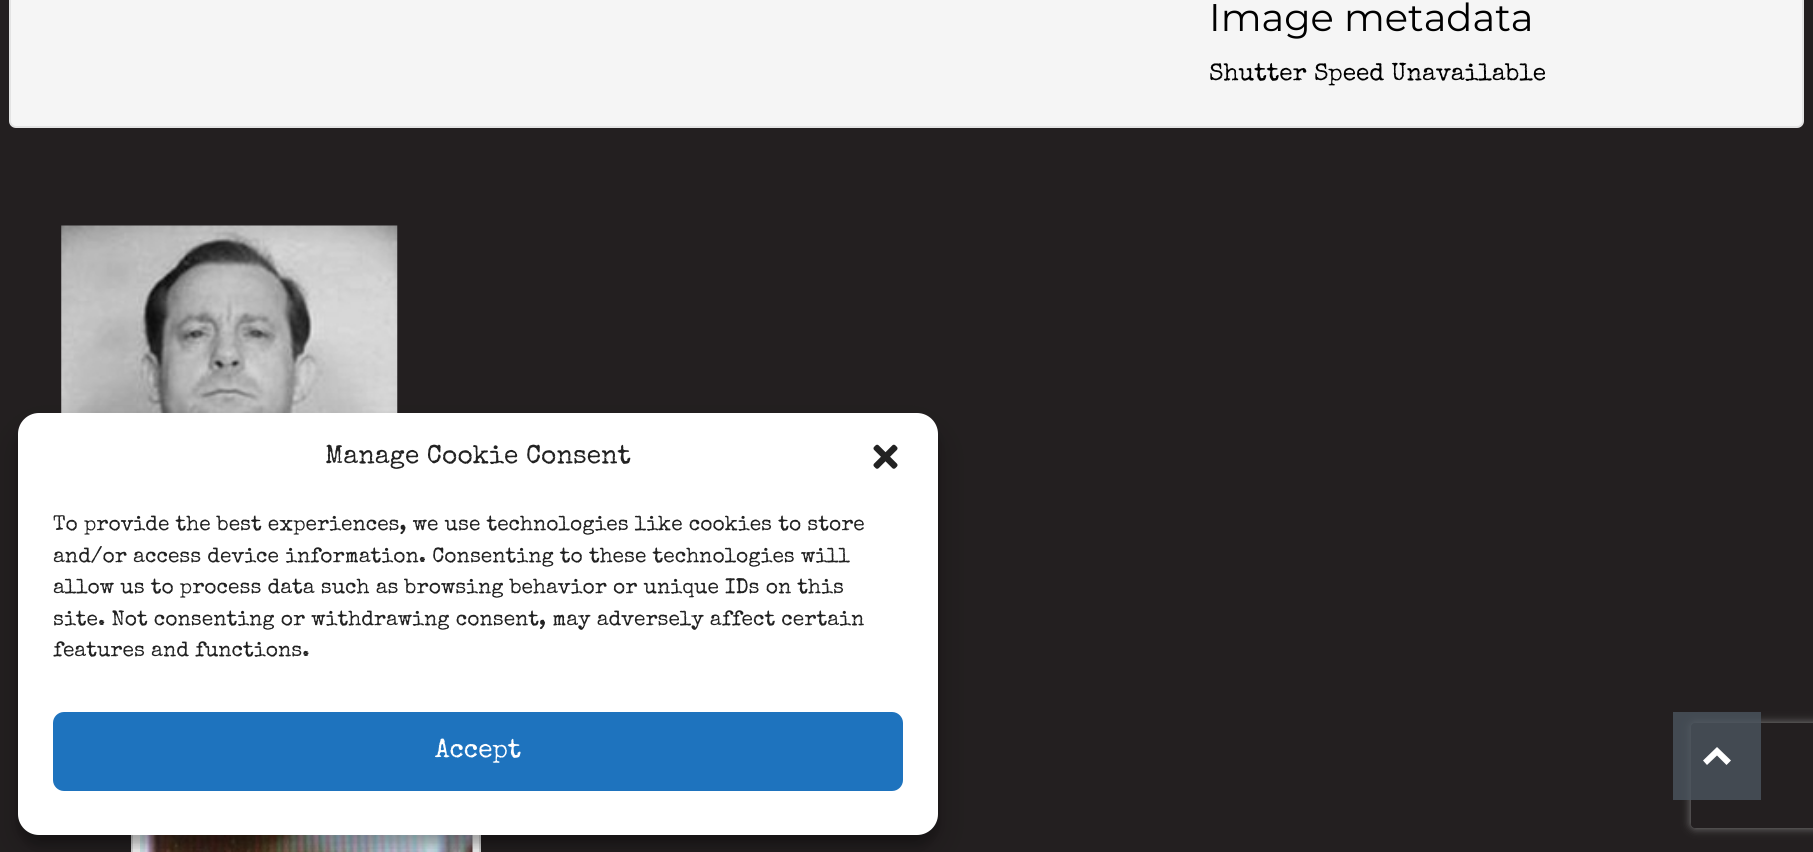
#include <cairo/cairo.h>
#include <math.h>
#include <stddef.h>

typedef struct { double x, y; const char *s; } line_t;
static cairo_t *cr;

static void rgb(unsigned color)
{
	cairo_set_source_rgb(cr, (color >> 16) / 255.0, (color >> 8 & 255) / 255.0, (color & 255) / 255.0);
}

static void rrect(double x, double y, double w, double h, double r)
{
	cairo_new_sub_path(cr);
	cairo_arc(cr, x + w - r, y + h - r, r, 0, M_PI / 2);
	cairo_arc(cr, x + r, y + h - r, r, M_PI / 2, M_PI);
	cairo_arc(cr, x + r, y + r, r, M_PI, 1.5 * M_PI);
	cairo_arc(cr, x + w - r, y + r, r, 1.5 * M_PI, 2 * M_PI);
	cairo_close_path(cr);
}

static void soft_shadow(double x, double y, double w, double h, double r, double blur, double alpha)
{
	cairo_push_group_with_content(cr, CAIRO_CONTENT_ALPHA);
	cairo_set_operator(cr, CAIRO_OPERATOR_SOURCE);
	for (int i = 15; i >= -15 && fmin(w, h) + blur * i / 3 > 0; i -= 2) {
		double e = blur * i / 6;
		cairo_set_source_rgba(cr, 0, 0, 0, alpha * erfc((i - 1) / 8.5) / 2);
		rrect(x - e, y - e, w + 2 * e, h + 2 * e, fmax(0, fmin(r + e + blur * .6, fmin(w, h) / 2 + e)));
		cairo_fill(cr);
	}
	cairo_pattern_t *soft = cairo_pop_group(cr);
	cairo_mask(cr, soft);
	cairo_pattern_destroy(soft);
}

static void image(const char *path, double x, double y, double w, double h)
{
	cairo_surface_t *image = cairo_image_surface_create_from_png(path);
	cairo_save(cr);
	cairo_set_source_surface(cr, image, x, y);
	cairo_rectangle(cr, x, y, w, h);
	cairo_fill(cr);
	cairo_restore(cr);
	cairo_surface_destroy(image);
}

int main(void) {
	cairo_surface_t *surface = cairo_image_surface_create(CAIRO_FORMAT_RGB24, 1813, 852);
	cr = cairo_create(surface);
	cairo_font_options_t *options = cairo_font_options_create();
	cairo_font_options_set_hint_metrics(options, CAIRO_HINT_METRICS_OFF);
	cairo_font_options_set_hint_style(options, CAIRO_HINT_STYLE_NONE);
	cairo_set_font_options(cr, options);
	cairo_set_miter_limit(cr, 4);
	rgb(0x231f20);
	cairo_paint(cr);
	rgb(0xf5f5f5);
	rrect(10, -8, 1793, 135, 6);
	cairo_fill_preserve(cr);
	rgb(0xe3e3e3);
	cairo_stroke(cr);
	image("img/1.png", 61, 225, 337, 188);
	rgb(0xffffff);
	cairo_rectangle(cr, 133, 835, 346, 17);
	cairo_fill(cr);
	cairo_rectangle(cr, 132, 668, 348, 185);
	rgb(0xdddddd);
	cairo_stroke(cr);
	image("img/2.png", 140, 835, 333, 17);
	rgb(0x000000);
	soft_shadow(18, 424, 920, 421, 21, 5, 0.23);
	soft_shadow(18, 431, 920, 421, 21, 17.5, 0.19);
	rgb(0xffffff);
	rrect(18, 413, 920, 422, 21);
	cairo_fill(cr);
	image("img/3.png", 873, 444, 25, 25);
	rgb(0x1e73be);
	rrect(54, 713, 848, 77, 10);
	cairo_fill_preserve(cr);
	cairo_stroke(cr);
	cairo_save(cr);
	cairo_set_fill_rule(cr, CAIRO_FILL_RULE_EVEN_ODD);
	cairo_new_path(cr);
	cairo_move_to(cr, 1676, 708);
	cairo_line_to(cr, 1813, 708);
	cairo_line_to(cr, 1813, 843);
	cairo_line_to(cr, 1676, 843);
	cairo_close_path(cr);
	cairo_move_to(cr, 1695, 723);
	cairo_line_to(cr, 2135, 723);
	cairo_curve_to(cr, 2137, 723, 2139, 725, 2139, 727);
	cairo_line_to(cr, 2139, 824);
	cairo_curve_to(cr, 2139, 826, 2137, 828, 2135, 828);
	cairo_line_to(cr, 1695, 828);
	cairo_curve_to(cr, 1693, 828, 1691, 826, 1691, 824);
	cairo_line_to(cr, 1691, 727);
	cairo_curve_to(cr, 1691, 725, 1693, 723, 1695, 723);
	cairo_close_path(cr);
	cairo_clip(cr);
	rgb(0x808080);
	soft_shadow(1691, 723, 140, 105, 4, 4.5, 1);
	cairo_restore(cr);
	cairo_set_source_rgba(cr, 0.294, 0.333, 0.373, 0.8);
	cairo_rectangle(cr, 1673, 712, 88, 88);
	cairo_fill(cr);
	rgb(0xffffff);
	cairo_new_path(cr);
	cairo_move_to(cr, 1717, 747);
	cairo_line_to(cr, 1731, 760.5);
	cairo_line_to(cr, 1726.5, 765);
	cairo_line_to(cr, 1717, 755.5);
	cairo_line_to(cr, 1707, 765);
	cairo_line_to(cr, 1703, 760.5);
	cairo_close_path(cr);
	cairo_fill(cr);
	cairo_select_font_face(cr, "Montserrat", CAIRO_FONT_SLANT_NORMAL, CAIRO_FONT_WEIGHT_NORMAL);
	cairo_set_font_size(cr, 38.5);
	rgb(0x000000);
	cairo_move_to(cr, 1209, 31);
	cairo_show_text(cr, "Image metadata");
	cairo_select_font_face(cr, "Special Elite", CAIRO_FONT_SLANT_NORMAL, CAIRO_FONT_WEIGHT_NORMAL);
	cairo_set_font_size(cr, 24.5);
	cairo_move_to(cr, 1209, 80);
	cairo_show_text(cr, "Shutter Speed Unavailable");
	cairo_set_font_size(cr, 26.25);
	rgb(0x222222);
	cairo_move_to(cr, 325, 463);
	cairo_show_text(cr, "Manage Cookie Consent");
	cairo_set_font_size(cr, 21);
	{
		static const line_t items[] = {
			{53, 530, "To provide the best experiences, we use technologies like cookies to store"},
			{53, 562, "and/or access device information. Consenting to these technologies will"},
			{53, 593, "allow us to process data such as browsing behavior or unique IDs on this"},
			{53, 625, "site. Not consenting or withdrawing consent, may adversely affect certain"},
			{53, 656, "features and functions."},
		};
		for (size_t i = 0; i < sizeof items / sizeof *items; i++) {
			cairo_move_to(cr, items[i].x, items[i].y);
			cairo_show_text(cr, items[i].s);
		}
	}
	cairo_set_font_size(cr, 26.25);
	rgb(0xffffff);
	cairo_move_to(cr, 435, 757);
	cairo_show_text(cr, "Accept");
	cairo_surface_write_to_png(surface, "page.png");
	cairo_font_options_destroy(options);
	cairo_destroy(cr);
	cairo_surface_destroy(surface);
	return 0;
}
